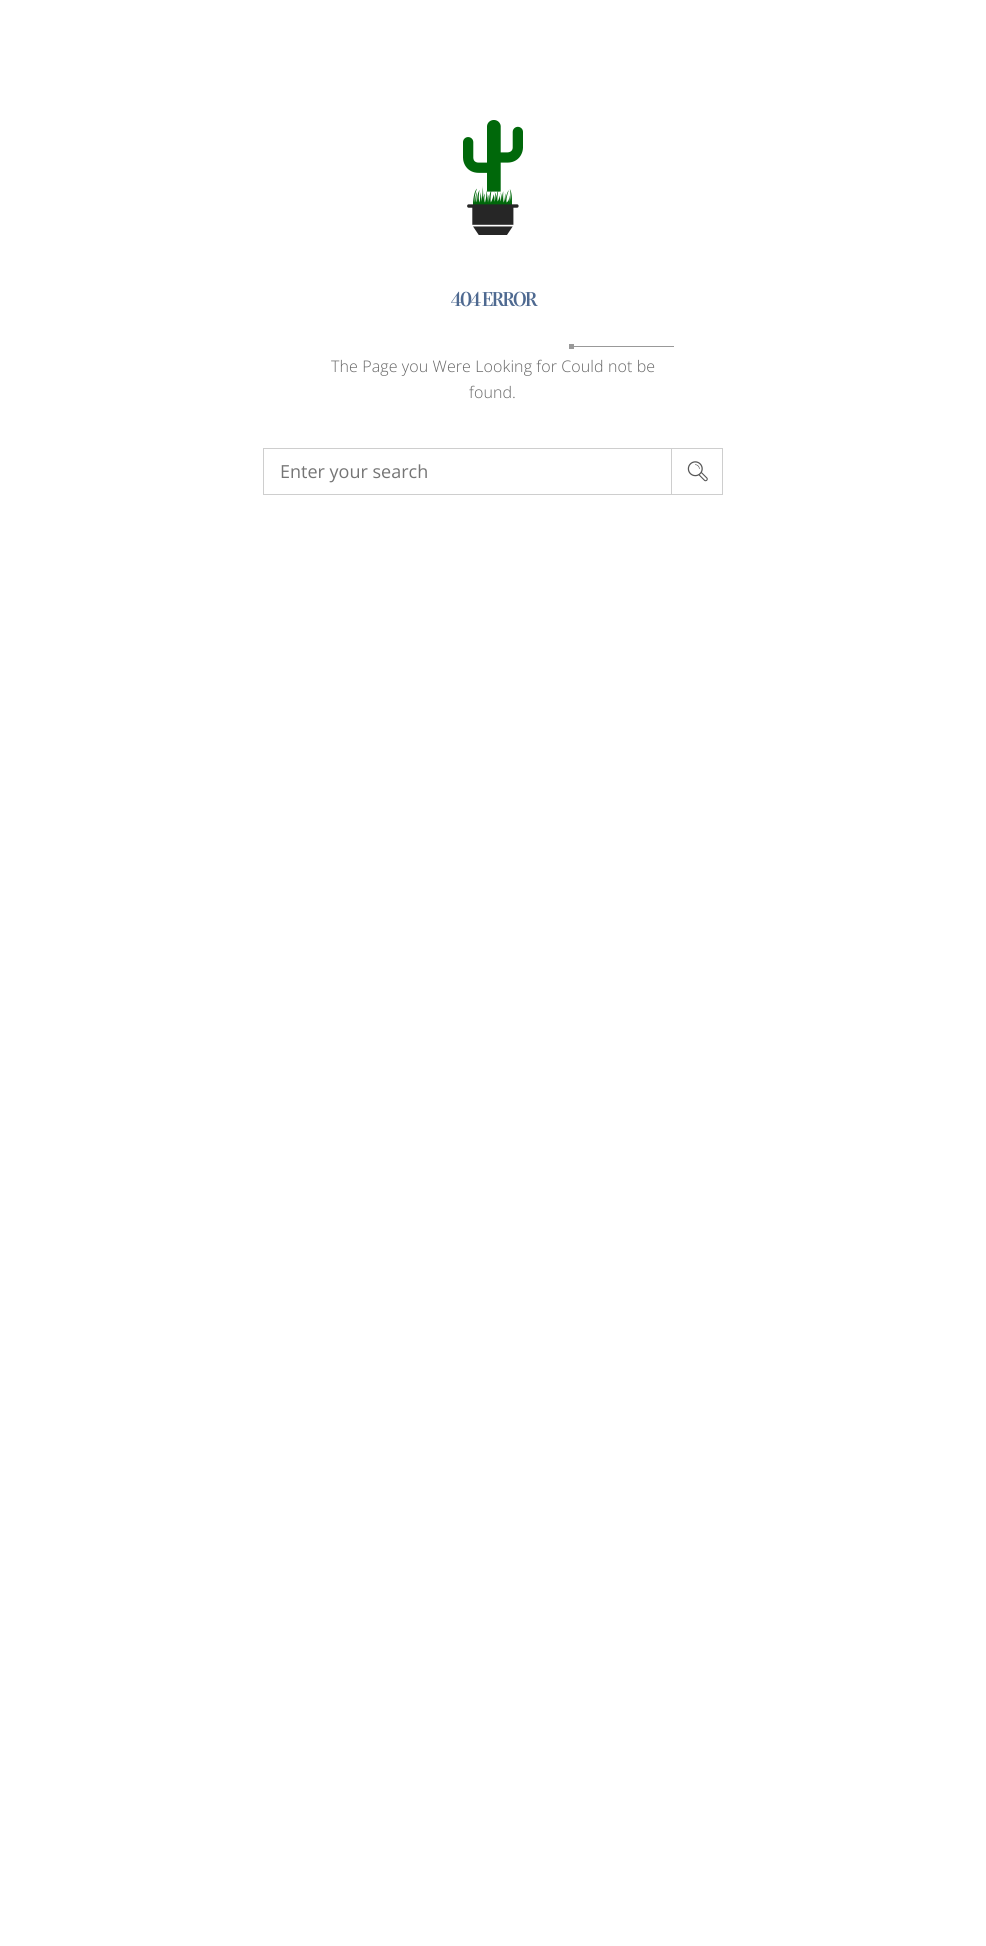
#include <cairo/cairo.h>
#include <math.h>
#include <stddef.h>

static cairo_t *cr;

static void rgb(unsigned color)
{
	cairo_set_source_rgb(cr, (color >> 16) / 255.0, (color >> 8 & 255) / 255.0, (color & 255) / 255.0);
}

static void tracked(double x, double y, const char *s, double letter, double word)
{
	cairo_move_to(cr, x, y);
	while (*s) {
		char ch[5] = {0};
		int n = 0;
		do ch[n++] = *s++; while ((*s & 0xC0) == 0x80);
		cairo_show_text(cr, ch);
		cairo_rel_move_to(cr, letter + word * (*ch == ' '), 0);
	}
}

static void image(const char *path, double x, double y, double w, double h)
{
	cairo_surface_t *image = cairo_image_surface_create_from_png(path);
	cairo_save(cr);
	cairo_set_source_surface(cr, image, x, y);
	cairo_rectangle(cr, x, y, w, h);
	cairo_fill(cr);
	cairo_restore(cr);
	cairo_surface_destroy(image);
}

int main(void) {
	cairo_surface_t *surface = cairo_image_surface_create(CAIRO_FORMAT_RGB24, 986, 1946);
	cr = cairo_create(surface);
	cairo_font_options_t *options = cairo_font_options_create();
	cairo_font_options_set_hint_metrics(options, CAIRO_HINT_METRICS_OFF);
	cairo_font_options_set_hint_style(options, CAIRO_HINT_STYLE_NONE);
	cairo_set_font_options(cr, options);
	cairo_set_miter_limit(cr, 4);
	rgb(0xffffff);
	cairo_paint(cr);
	image("img/1.png", 463, 120, 60, 115);
	rgb(0x999999);
	cairo_rectangle(cr, 569, 344, 5, 5);
	cairo_fill(cr);
	cairo_rectangle(cr, 574, 346, 100, 1);
	cairo_fill(cr);
	cairo_rectangle(cr, 263.5, 448.5, 459, 46);
	rgb(0xcecece);
	cairo_set_line_width(cr, 1);
	cairo_stroke(cr);
	cairo_rectangle(cr, 671, 448, 1, 47);
	cairo_fill(cr);
	image("img/2.png", 687, 461, 21, 21);
	cairo_select_font_face(cr, "Vidaloka", CAIRO_FONT_SLANT_NORMAL, CAIRO_FONT_WEIGHT_NORMAL);
	cairo_set_font_size(cr, 20);
	rgb(0x4e6990);
	tracked(451, 306, "404 ERROR", -2, 0);
	cairo_select_font_face(cr, "Open Sans Light", CAIRO_FONT_SLANT_NORMAL, CAIRO_FONT_WEIGHT_NORMAL);
	cairo_set_font_size(cr, 16);
	rgb(0x666666);
	tracked(331, 372, "The Page you Were Looking for Could not be", 0.1, 0);
	tracked(469, 398, "found.", 0.1, 0);
	cairo_select_font_face(cr, "Open Sans", CAIRO_FONT_SLANT_NORMAL, CAIRO_FONT_WEIGHT_NORMAL);
	cairo_set_font_size(cr, 18);
	rgb(0x757575);
	cairo_move_to(cr, 280, 478);
	cairo_show_text(cr, "Enter your search");
	cairo_surface_write_to_png(surface, "page.png");
	cairo_font_options_destroy(options);
	cairo_destroy(cr);
	cairo_surface_destroy(surface);
	return 0;
}
